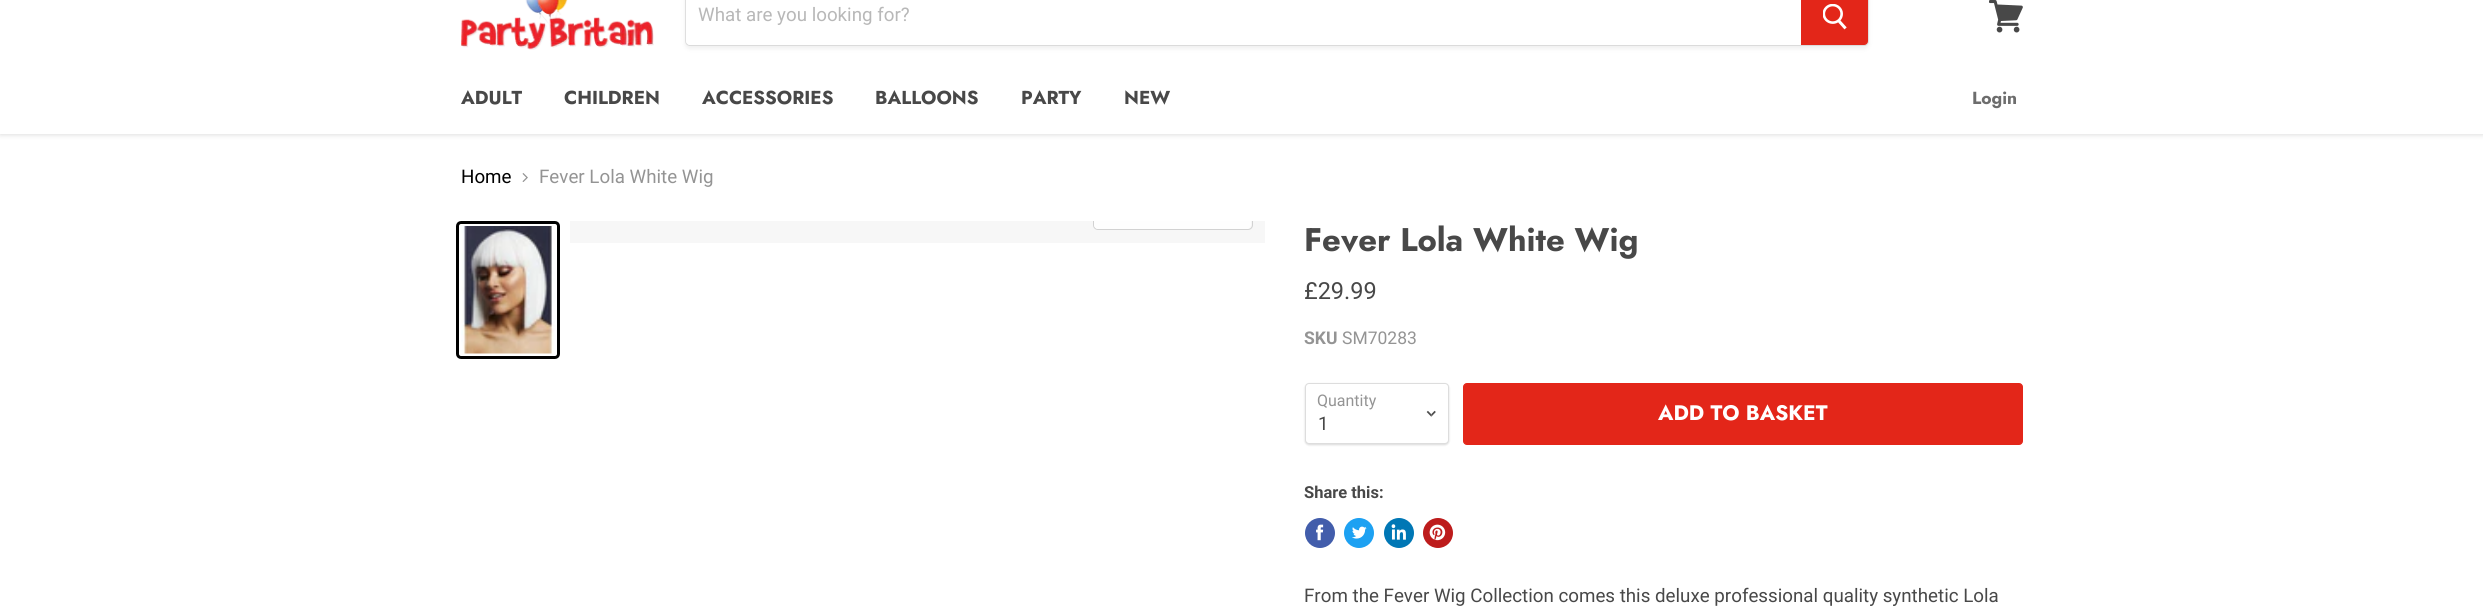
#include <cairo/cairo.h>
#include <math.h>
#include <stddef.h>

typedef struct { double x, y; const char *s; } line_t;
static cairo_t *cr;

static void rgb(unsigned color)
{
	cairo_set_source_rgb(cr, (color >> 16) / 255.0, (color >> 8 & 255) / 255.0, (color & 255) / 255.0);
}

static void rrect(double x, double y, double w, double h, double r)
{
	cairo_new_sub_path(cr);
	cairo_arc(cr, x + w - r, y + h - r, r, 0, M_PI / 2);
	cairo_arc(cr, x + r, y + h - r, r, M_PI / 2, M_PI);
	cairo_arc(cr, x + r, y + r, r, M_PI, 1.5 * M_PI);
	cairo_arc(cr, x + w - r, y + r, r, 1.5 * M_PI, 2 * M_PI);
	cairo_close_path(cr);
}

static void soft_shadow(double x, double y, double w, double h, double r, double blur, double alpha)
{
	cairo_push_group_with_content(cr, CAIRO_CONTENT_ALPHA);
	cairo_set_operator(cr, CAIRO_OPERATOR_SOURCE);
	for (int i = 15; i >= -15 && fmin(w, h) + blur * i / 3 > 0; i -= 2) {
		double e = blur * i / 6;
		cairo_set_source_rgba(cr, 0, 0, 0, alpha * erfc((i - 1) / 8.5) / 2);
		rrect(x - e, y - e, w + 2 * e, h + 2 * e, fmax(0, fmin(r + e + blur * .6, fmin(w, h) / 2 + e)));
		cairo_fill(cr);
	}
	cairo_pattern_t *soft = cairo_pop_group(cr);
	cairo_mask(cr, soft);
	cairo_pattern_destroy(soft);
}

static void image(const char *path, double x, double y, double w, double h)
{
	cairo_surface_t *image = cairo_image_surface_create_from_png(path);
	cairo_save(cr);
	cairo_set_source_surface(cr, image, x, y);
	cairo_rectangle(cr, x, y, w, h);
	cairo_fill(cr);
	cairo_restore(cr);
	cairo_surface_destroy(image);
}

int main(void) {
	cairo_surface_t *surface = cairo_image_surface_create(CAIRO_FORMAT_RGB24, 2483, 608);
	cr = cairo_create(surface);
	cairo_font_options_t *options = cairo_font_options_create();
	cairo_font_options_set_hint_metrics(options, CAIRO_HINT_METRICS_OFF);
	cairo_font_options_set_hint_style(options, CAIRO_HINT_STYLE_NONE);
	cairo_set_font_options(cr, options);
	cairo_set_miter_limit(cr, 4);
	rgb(0xffffff);
	cairo_paint(cr);
	rgb(0x7f7f7f);
	soft_shadow(0, -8, 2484, 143, 0, 2.5, 0.25);
	rgb(0xffffff);
	cairo_rectangle(cr, 0, 0, 2483, 134);
	cairo_fill(cr);
	image("img/1.png", 461, 0, 193, 50);
	rgb(0x7f7f7f);
	soft_shadow(685, -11, 1184, 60, 5, 2, 0.11);
	rrect(685.5, -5.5, 1183, 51, 4.5);
	cairo_set_source_rgba(cr, 0.498, 0.498, 0.498, 0.2);
	cairo_set_line_width(cr, 1);
	cairo_stroke(cr);
	rgb(0xffffff);
	cairo_new_path(cr);
	cairo_move_to(cr, 690, -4);
	cairo_line_to(cr, 1801, -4);
	cairo_line_to(cr, 1801, 45);
	cairo_line_to(cr, 690, 45);
	cairo_curve_to(cr, 688, 45, 686, 43, 686, 41);
	cairo_line_to(cr, 686, 0);
	cairo_curve_to(cr, 686, -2, 688, -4, 690, -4);
	cairo_close_path(cr);
	cairo_fill(cr);
	rgb(0xe32619);
	cairo_new_path(cr);
	cairo_move_to(cr, 1801.5, -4.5);
	cairo_line_to(cr, 1864, -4.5);
	cairo_curve_to(cr, 1866, -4.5, 1867.5, -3, 1867.5, -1);
	cairo_line_to(cr, 1867.5, 41);
	cairo_curve_to(cr, 1867.5, 43, 1866, 44.5, 1864, 44.5);
	cairo_line_to(cr, 1801.5, 44.5);
	cairo_close_path(cr);
	cairo_fill_preserve(cr);
	cairo_stroke(cr);
	image("img/2.png", 1823, 4, 24, 26);
	image("img/3.png", 1989, 0, 34, 33);
	image("img/4.png", 522, 173, 6, 9);
	rrect(457.5, 222.5, 101, 135, 3.5);
	rgb(0x000000);
	cairo_set_line_width(cr, 3);
	cairo_stroke(cr);
	image("img/5.png", 461, 226, 94, 128);
	rgb(0xf7f7f7);
	cairo_rectangle(cr, 570, 221, 695, 22);
	cairo_fill(cr);
	cairo_save(cr);
	cairo_rectangle(cr, 570, 221, 695, 22);
	cairo_clip(cr);
	rrect(1093.5, 194.5, 159, 35, 4.5);
	rgb(0xd2d2d2);
	cairo_set_line_width(cr, 1);
	cairo_stroke(cr);
	cairo_restore(cr);
	cairo_set_source_rgba(cr, 1, 1, 1, 0.9);
	cairo_new_path(cr);
	cairo_move_to(cr, 1094, 221);
	cairo_line_to(cr, 1251, 221);
	cairo_line_to(cr, 1251, 225);
	cairo_curve_to(cr, 1251, 227, 1249, 229, 1247, 229);
	cairo_line_to(cr, 1098, 229);
	cairo_curve_to(cr, 1096, 229, 1094, 227, 1094, 225);
	cairo_close_path(cr);
	cairo_fill(cr);
	rgb(0x000000);
	soft_shadow(1305, 384, 144, 61, 4, 1, 0.15);
	rgb(0xffffff);
	rrect(1305.5, 383.5, 143, 60, 3.5);
	cairo_fill_preserve(cr);
	rgb(0xdddddd);
	cairo_set_line_width(cr, 1);
	cairo_stroke(cr);
	image("img/6.png", 1426, 410, 10, 7);
	rgb(0xe32619);
	rrect(1463.5, 383.5, 559, 61, 3.5);
	cairo_fill_preserve(cr);
	cairo_stroke(cr);
	rgb(0x425dab);
	cairo_arc(cr, 1320, 533, 15, 0, 2 * M_PI);
	cairo_fill(cr);
	image("img/7.png", 1316, 524, 8, 17);
	rgb(0x1da1f2);
	cairo_arc(cr, 1359, 533, 15, 0, 2 * M_PI);
	cairo_fill(cr);
	image("img/8.png", 1352, 526, 15, 13);
	rgb(0x0077b5);
	cairo_arc(cr, 1399, 533, 15, 0, 2 * M_PI);
	cairo_fill(cr);
	image("img/9.png", 1391, 524, 15, 16);
	rgb(0xbd1c1c);
	cairo_arc(cr, 1438, 533, 15, 0, 2 * M_PI);
	cairo_fill(cr);
	image("img/10.png", 1429, 524, 17, 17);
	cairo_select_font_face(cr, "Roboto", CAIRO_FONT_SLANT_NORMAL, CAIRO_FONT_WEIGHT_NORMAL);
	cairo_set_font_size(cr, 18.75);
	rgb(0xb8b8b8);
	cairo_move_to(cr, 698, 21);
	cairo_show_text(cr, "What are you looking for?");
	cairo_select_font_face(cr, "Jost", CAIRO_FONT_SLANT_NORMAL, CAIRO_FONT_WEIGHT_BOLD);
	rgb(0x484848);
	{
		static const line_t items[] = {
			{461, 104, "ADULT"},
			{564, 104, "CHILDREN"},
			{702, 104, "ACCESSORIES"},
			{875, 104, "BALLOONS"},
			{1021, 104, "PARTY"},
			{1124, 104, "NEW"},
		};
		for (size_t i = 0; i < sizeof items / sizeof *items; i++) {
			cairo_move_to(cr, items[i].x, items[i].y);
			cairo_show_text(cr, items[i].s);
		}
	}
	cairo_set_font_size(cr, 17.5);
	rgb(0x6d6d6d);
	cairo_move_to(cr, 1972, 104);
	cairo_show_text(cr, "Login");
	cairo_select_font_face(cr, "Roboto", CAIRO_FONT_SLANT_NORMAL, CAIRO_FONT_WEIGHT_NORMAL);
	cairo_set_font_size(cr, 18.75);
	rgb(0x000000);
	cairo_move_to(cr, 461, 183);
	cairo_show_text(cr, "Home");
	rgb(0x949494);
	cairo_move_to(cr, 539, 183);
	cairo_show_text(cr, "Fever Lola White Wig");
	cairo_select_font_face(cr, "Jost", CAIRO_FONT_SLANT_NORMAL, CAIRO_FONT_WEIGHT_BOLD);
	cairo_set_font_size(cr, 32.75);
	rgb(0x484848);
	cairo_move_to(cr, 1304, 251);
	cairo_show_text(cr, "Fever Lola White Wig");
	cairo_select_font_face(cr, "Roboto", CAIRO_FONT_SLANT_NORMAL, CAIRO_FONT_WEIGHT_NORMAL);
	cairo_set_font_size(cr, 23.5);
	cairo_move_to(cr, 1304, 299);
	cairo_show_text(cr, "£29.99");
	cairo_select_font_face(cr, "Roboto", CAIRO_FONT_SLANT_NORMAL, CAIRO_FONT_WEIGHT_BOLD);
	cairo_set_font_size(cr, 17.5);
	rgb(0x949494);
	cairo_move_to(cr, 1304, 344);
	cairo_show_text(cr, "SKU");
	cairo_select_font_face(cr, "Roboto", CAIRO_FONT_SLANT_NORMAL, CAIRO_FONT_WEIGHT_NORMAL);
	cairo_move_to(cr, 1342, 344);
	cairo_show_text(cr, "SM70283");
	cairo_set_font_size(cr, 16);
	cairo_move_to(cr, 1317, 406);
	cairo_show_text(cr, "Quantity");
	cairo_set_font_size(cr, 18.75);
	rgb(0x484848);
	cairo_move_to(cr, 1318, 430);
	cairo_show_text(cr, "1");
	cairo_select_font_face(cr, "Jost", CAIRO_FONT_SLANT_NORMAL, CAIRO_FONT_WEIGHT_BOLD);
	cairo_set_font_size(cr, 21);
	rgb(0xffffff);
	cairo_move_to(cr, 1658, 420);
	cairo_show_text(cr, "ADD TO BASKET");
	cairo_select_font_face(cr, "Roboto", CAIRO_FONT_SLANT_NORMAL, CAIRO_FONT_WEIGHT_BOLD);
	cairo_set_font_size(cr, 16.5);
	rgb(0x484848);
	cairo_move_to(cr, 1304, 498);
	cairo_show_text(cr, "Share this:");
	cairo_select_font_face(cr, "Roboto", CAIRO_FONT_SLANT_NORMAL, CAIRO_FONT_WEIGHT_NORMAL);
	cairo_set_font_size(cr, 18.75);
	cairo_move_to(cr, 1304, 602);
	cairo_show_text(cr, "From the Fever Wig Collection comes this deluxe professional quality synthetic Lola");
	cairo_surface_write_to_png(surface, "page.png");
	cairo_font_options_destroy(options);
	cairo_destroy(cr);
	cairo_surface_destroy(surface);
	return 0;
}
